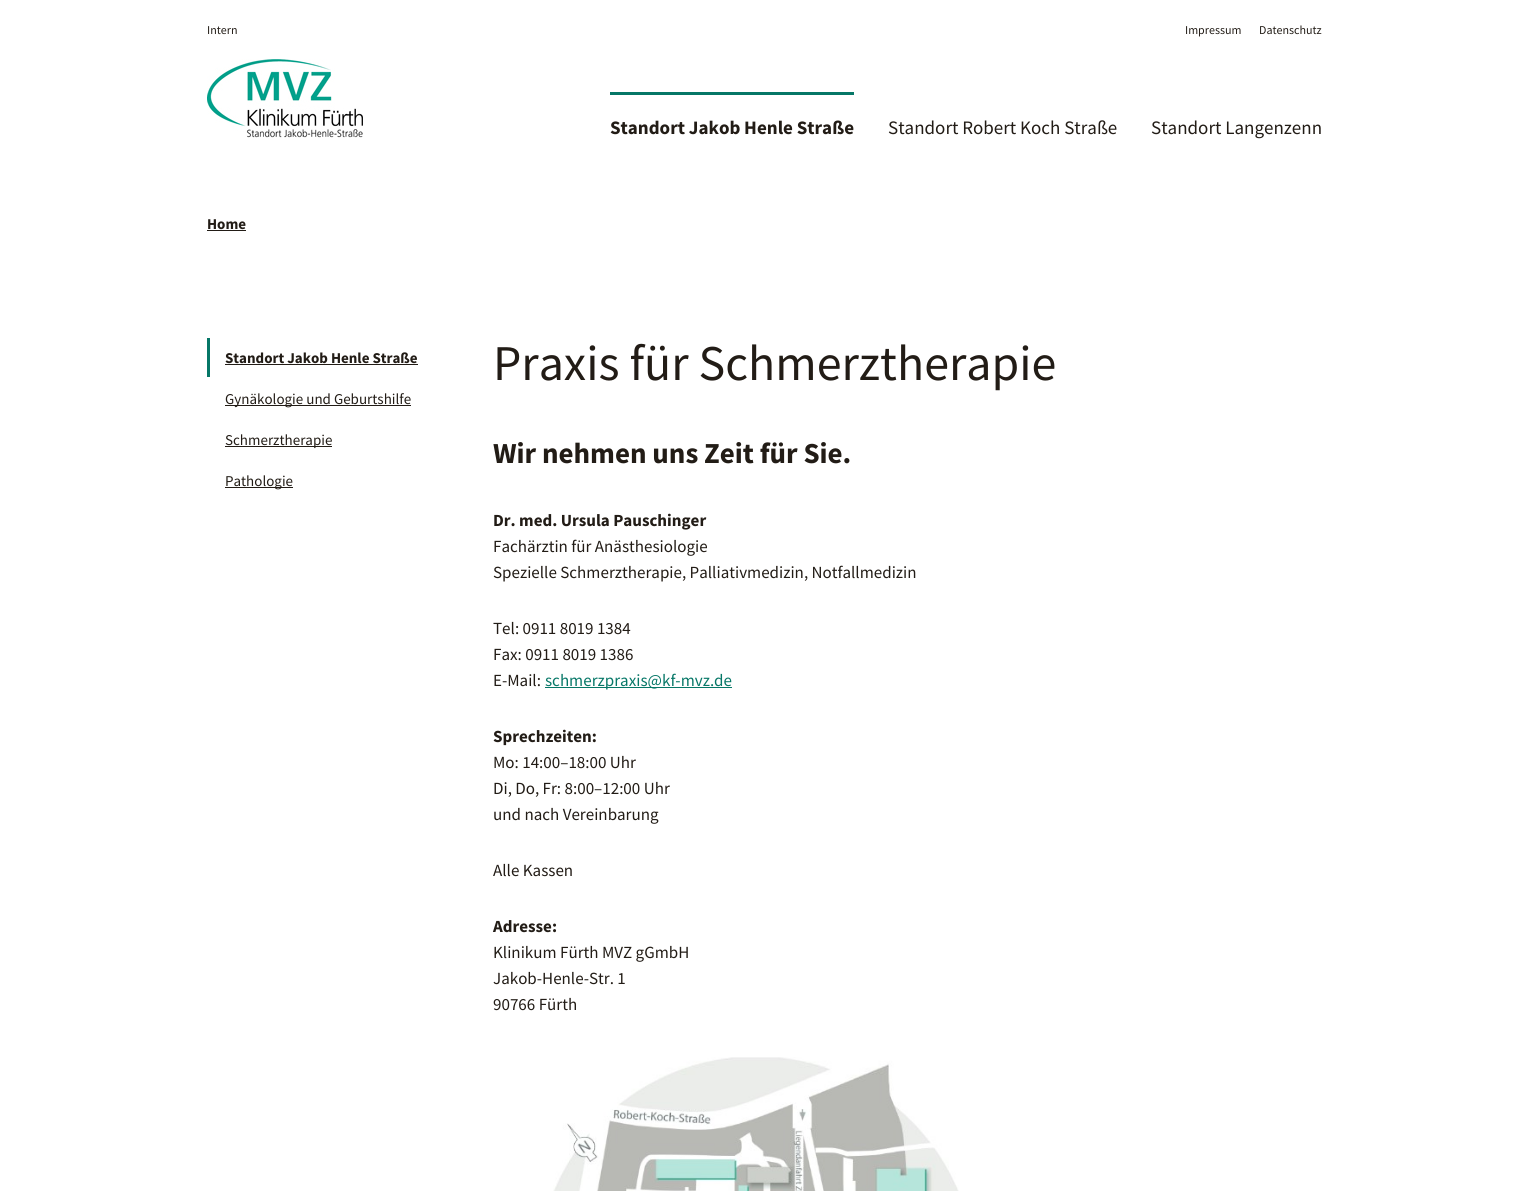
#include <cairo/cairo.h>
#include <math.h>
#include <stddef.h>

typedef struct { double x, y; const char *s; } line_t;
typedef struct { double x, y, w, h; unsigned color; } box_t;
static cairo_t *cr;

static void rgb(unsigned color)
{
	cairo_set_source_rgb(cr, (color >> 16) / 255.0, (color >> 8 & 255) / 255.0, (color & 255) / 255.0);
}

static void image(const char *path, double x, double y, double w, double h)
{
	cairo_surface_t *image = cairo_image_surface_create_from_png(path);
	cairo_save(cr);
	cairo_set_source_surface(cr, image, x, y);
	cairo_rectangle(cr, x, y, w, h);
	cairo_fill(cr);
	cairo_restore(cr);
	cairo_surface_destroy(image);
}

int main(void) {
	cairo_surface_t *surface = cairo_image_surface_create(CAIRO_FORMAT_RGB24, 1529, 1191);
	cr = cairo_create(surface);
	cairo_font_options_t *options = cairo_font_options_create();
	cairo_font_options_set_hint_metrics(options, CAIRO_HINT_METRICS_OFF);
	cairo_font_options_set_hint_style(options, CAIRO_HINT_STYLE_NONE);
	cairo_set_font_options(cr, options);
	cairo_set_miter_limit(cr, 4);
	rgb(0xffffff);
	cairo_paint(cr);
	image("img/1.png", 207, 59, 156, 79);
	{
		static const box_t items[] = {
			{610, 92, 244, 3, 0x067767},
			{207, 230, 39, 1, 0x221c16},
			{207, 338, 3, 39, 0x067767},
			{225, 364, 193, 1, 0x221c16},
			{225, 405, 186, 1, 0x221c16},
			{225, 446, 107, 1, 0x221c16},
			{225, 487, 68, 1, 0x221c16},
			{545, 687, 187, 1, 0x067767},
		};
		for (size_t i = 0; i < sizeof items / sizeof *items; i++) {
			rgb(items[i].color);
			cairo_rectangle(cr, items[i].x, items[i].y, items[i].w, items[i].h);
			cairo_fill(cr);
		}
	}
	image("img/2.png", 553, 1057, 406, 134);
	cairo_select_font_face(cr, "Source Sans Pro", CAIRO_FONT_SLANT_NORMAL, CAIRO_FONT_WEIGHT_NORMAL);
	cairo_set_font_size(cr, 12);
	rgb(0x221c16);
	{
		static const line_t items[] = {
			{207, 34, "Intern"},
			{1185, 34, "Impressum"},
			{1259, 34, "Datenschutz"},
		};
		for (size_t i = 0; i < sizeof items / sizeof *items; i++) {
			cairo_move_to(cr, items[i].x, items[i].y);
			cairo_show_text(cr, items[i].s);
		}
	}
	cairo_select_font_face(cr, "Source Sans Pro", CAIRO_FONT_SLANT_NORMAL, CAIRO_FONT_WEIGHT_BOLD);
	cairo_set_font_size(cr, 19);
	cairo_move_to(cr, 610, 134);
	cairo_show_text(cr, "Standort Jakob Henle Straße");
	cairo_select_font_face(cr, "Source Sans Pro", CAIRO_FONT_SLANT_NORMAL, CAIRO_FONT_WEIGHT_NORMAL);
	cairo_move_to(cr, 888, 134);
	cairo_show_text(cr, "Standort Robert Koch Straße");
	cairo_move_to(cr, 1151, 134);
	cairo_show_text(cr, "Standort Langenzenn");
	cairo_select_font_face(cr, "Source Sans Pro", CAIRO_FONT_SLANT_NORMAL, CAIRO_FONT_WEIGHT_BOLD);
	cairo_set_font_size(cr, 15);
	cairo_move_to(cr, 207, 229);
	cairo_show_text(cr, "Home");
	cairo_move_to(cr, 225, 363);
	cairo_show_text(cr, "Standort Jakob Henle Straße");
	cairo_select_font_face(cr, "Source Sans Pro", CAIRO_FONT_SLANT_NORMAL, CAIRO_FONT_WEIGHT_NORMAL);
	{
		static const line_t items[] = {
			{225, 404, "Gynäkologie und Geburtshilfe"},
			{225, 445, "Schmerztherapie"},
			{225, 486, "Pathologie"},
		};
		for (size_t i = 0; i < sizeof items / sizeof *items; i++) {
			cairo_move_to(cr, items[i].x, items[i].y);
			cairo_show_text(cr, items[i].s);
		}
	}
	cairo_set_font_size(cr, 50);
	cairo_move_to(cr, 493, 380);
	cairo_show_text(cr, "Praxis für Schmerztherapie");
	cairo_select_font_face(cr, "Source Sans Pro", CAIRO_FONT_SLANT_NORMAL, CAIRO_FONT_WEIGHT_BOLD);
	cairo_set_font_size(cr, 29);
	cairo_move_to(cr, 493, 463);
	cairo_show_text(cr, "Wir nehmen uns Zeit für Sie.");
	cairo_set_font_size(cr, 17);
	cairo_move_to(cr, 493, 526);
	cairo_show_text(cr, "Dr. med. Ursula Pauschinger");
	cairo_select_font_face(cr, "Source Sans Pro", CAIRO_FONT_SLANT_NORMAL, CAIRO_FONT_WEIGHT_NORMAL);
	{
		static const line_t items[] = {
			{493, 552, "Fachärztin für Anästhesiologie"},
			{493, 578, "Spezielle Schmerztherapie, Palliativmedizin, Notfallmedizin"},
			{493, 634, "Tel: 0911 8019 1384"},
			{493, 660, "Fax: 0911 8019 1386"},
			{493, 686, "E-Mail:"},
		};
		for (size_t i = 0; i < sizeof items / sizeof *items; i++) {
			cairo_move_to(cr, items[i].x, items[i].y);
			cairo_show_text(cr, items[i].s);
		}
	}
	rgb(0x067767);
	cairo_move_to(cr, 545, 686);
	cairo_show_text(cr, "schmerzpraxis@kf-mvz.de");
	cairo_select_font_face(cr, "Source Sans Pro", CAIRO_FONT_SLANT_NORMAL, CAIRO_FONT_WEIGHT_BOLD);
	rgb(0x221c16);
	cairo_move_to(cr, 493, 742);
	cairo_show_text(cr, "Sprechzeiten:");
	cairo_select_font_face(cr, "Source Sans Pro", CAIRO_FONT_SLANT_NORMAL, CAIRO_FONT_WEIGHT_NORMAL);
	{
		static const line_t items[] = {
			{493, 768, "Mo: 14:00–18:00 Uhr"},
			{493, 794, "Di, Do, Fr: 8:00–12:00 Uhr"},
			{493, 820, "und nach Vereinbarung"},
			{493, 876, "Alle Kassen"},
		};
		for (size_t i = 0; i < sizeof items / sizeof *items; i++) {
			cairo_move_to(cr, items[i].x, items[i].y);
			cairo_show_text(cr, items[i].s);
		}
	}
	cairo_select_font_face(cr, "Source Sans Pro", CAIRO_FONT_SLANT_NORMAL, CAIRO_FONT_WEIGHT_BOLD);
	cairo_move_to(cr, 493, 932);
	cairo_show_text(cr, "Adresse:");
	cairo_select_font_face(cr, "Source Sans Pro", CAIRO_FONT_SLANT_NORMAL, CAIRO_FONT_WEIGHT_NORMAL);
	{
		static const line_t items[] = {
			{493, 958, "Klinikum Fürth MVZ gGmbH"},
			{493, 984, "Jakob-Henle-Str. 1"},
			{493, 1010, "90766 Fürth"},
		};
		for (size_t i = 0; i < sizeof items / sizeof *items; i++) {
			cairo_move_to(cr, items[i].x, items[i].y);
			cairo_show_text(cr, items[i].s);
		}
	}
	cairo_surface_write_to_png(surface, "page.png");
	cairo_font_options_destroy(options);
	cairo_destroy(cr);
	cairo_surface_destroy(surface);
	return 0;
}
